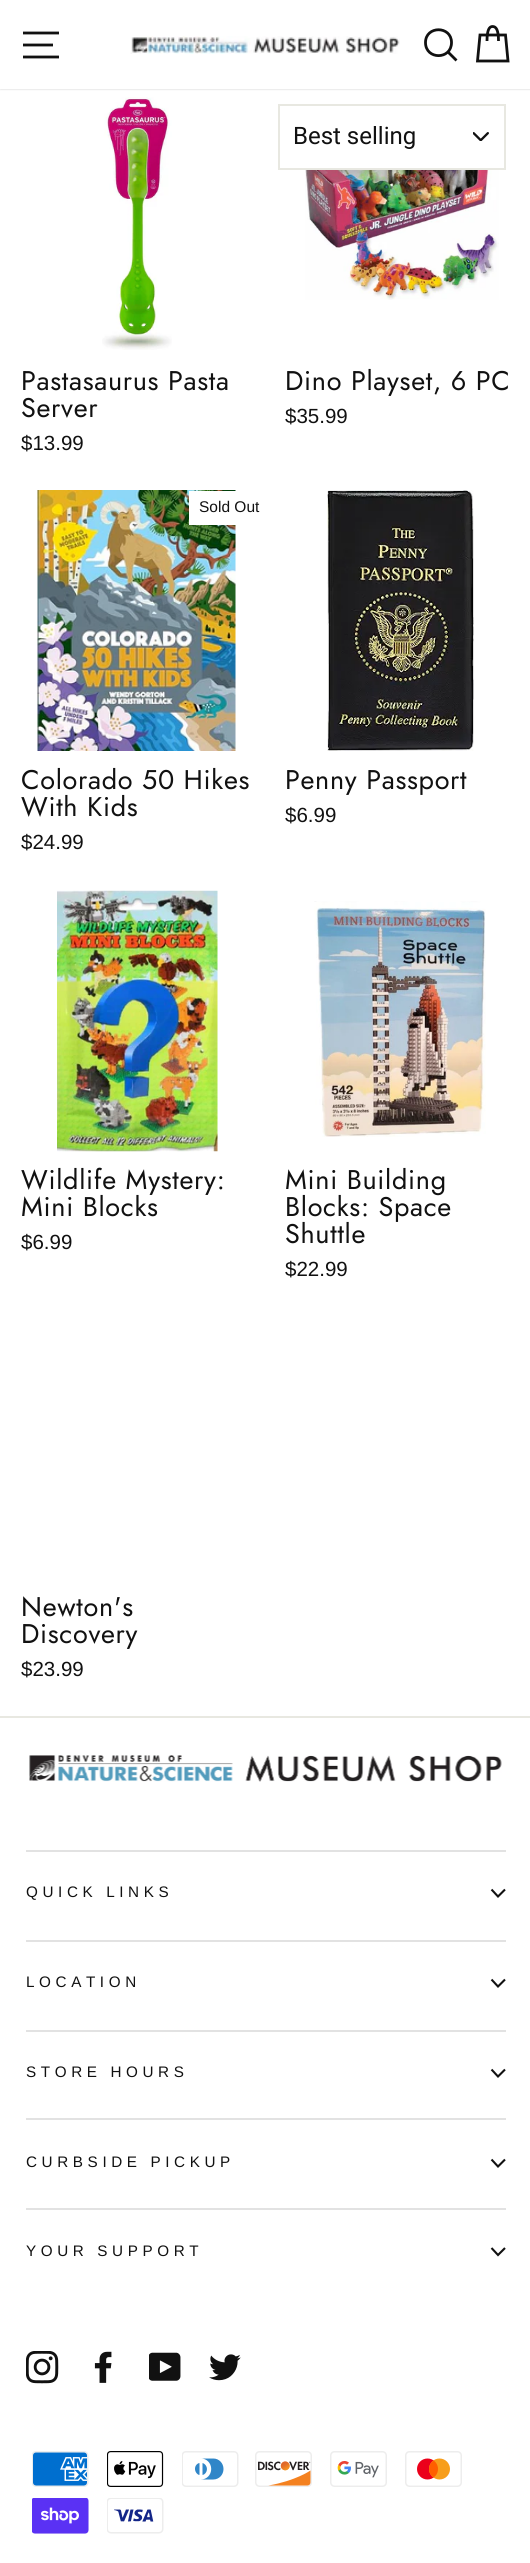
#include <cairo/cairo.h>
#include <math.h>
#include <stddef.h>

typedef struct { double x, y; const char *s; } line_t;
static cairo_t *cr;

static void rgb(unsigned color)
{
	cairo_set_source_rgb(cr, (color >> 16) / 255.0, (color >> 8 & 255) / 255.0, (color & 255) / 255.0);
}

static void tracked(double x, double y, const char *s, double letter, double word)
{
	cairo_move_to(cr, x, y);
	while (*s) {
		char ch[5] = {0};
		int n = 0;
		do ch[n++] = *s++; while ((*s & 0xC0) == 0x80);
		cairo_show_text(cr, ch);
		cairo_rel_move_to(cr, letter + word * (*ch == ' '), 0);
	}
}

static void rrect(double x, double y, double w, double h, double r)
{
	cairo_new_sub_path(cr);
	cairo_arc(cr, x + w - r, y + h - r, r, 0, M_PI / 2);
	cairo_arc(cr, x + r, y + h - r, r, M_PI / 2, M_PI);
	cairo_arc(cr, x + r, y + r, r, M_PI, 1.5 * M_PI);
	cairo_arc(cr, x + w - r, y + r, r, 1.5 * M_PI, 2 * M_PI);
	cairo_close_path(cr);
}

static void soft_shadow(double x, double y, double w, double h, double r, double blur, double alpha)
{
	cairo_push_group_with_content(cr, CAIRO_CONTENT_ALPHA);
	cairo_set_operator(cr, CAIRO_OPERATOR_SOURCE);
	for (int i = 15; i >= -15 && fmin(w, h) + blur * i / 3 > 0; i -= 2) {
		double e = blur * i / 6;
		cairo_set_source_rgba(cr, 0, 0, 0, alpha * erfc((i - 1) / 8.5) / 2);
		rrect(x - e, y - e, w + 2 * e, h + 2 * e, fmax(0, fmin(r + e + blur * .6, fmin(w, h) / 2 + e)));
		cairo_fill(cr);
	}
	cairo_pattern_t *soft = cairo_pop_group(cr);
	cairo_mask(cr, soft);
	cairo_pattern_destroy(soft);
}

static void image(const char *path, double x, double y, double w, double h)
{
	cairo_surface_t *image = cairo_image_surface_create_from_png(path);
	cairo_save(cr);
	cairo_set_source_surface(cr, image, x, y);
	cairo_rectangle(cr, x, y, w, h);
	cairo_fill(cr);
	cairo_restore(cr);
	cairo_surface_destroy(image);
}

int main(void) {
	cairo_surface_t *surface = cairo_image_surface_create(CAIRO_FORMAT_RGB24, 530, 2563);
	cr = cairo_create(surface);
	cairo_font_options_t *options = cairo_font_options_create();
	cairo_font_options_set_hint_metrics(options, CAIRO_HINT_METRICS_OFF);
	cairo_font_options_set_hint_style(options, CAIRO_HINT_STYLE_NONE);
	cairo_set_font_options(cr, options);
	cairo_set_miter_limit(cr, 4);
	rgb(0xffffff);
	cairo_paint(cr);
	rgb(0x000000);
	soft_shadow(0, 0, 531, 89, 0, 1, 0.2);
	rgb(0xffffff);
	cairo_rectangle(cr, 0, 0, 530, 89);
	cairo_fill(cr);
	cairo_new_path(cr);
	cairo_move_to(cr, 23, 33);
	cairo_line_to(cr, 59, 33);
	cairo_move_to(cr, 23, 45);
	cairo_line_to(cr, 53, 45);
	cairo_move_to(cr, 23, 57);
	cairo_line_to(cr, 59, 57);
	rgb(0x111111);
	cairo_set_line_width(cr, 2.8);
	cairo_stroke(cr);
	image("img/1.png", 130, 36, 270, 18);
	cairo_new_path(cr);
	cairo_move_to(cr, 451.5, 42.5);
	cairo_curve_to(cr, 451.5, 60, 425.5, 60, 425.5, 42.5);
	cairo_curve_to(cr, 425.5, 25.5, 451.5, 25.5, 451.5, 42.5);
	cairo_close_path(cr);
	cairo_move_to(cr, 456.5, 60.5);
	cairo_line_to(cr, 448, 52);
	cairo_stroke(cr);
	cairo_new_path(cr);
	cairo_move_to(cr, 487, 41);
	cairo_curve_to(cr, 487, 29.5, 489.5, 26.5, 492.5, 26.5);
	cairo_curve_to(cr, 496, 26.5, 498.5, 29.5, 498.5, 41);
	cairo_move_to(cr, 480, 35);
	cairo_line_to(cr, 505.5, 35);
	cairo_line_to(cr, 508, 61);
	cairo_line_to(cr, 477.5, 61);
	cairo_close_path(cr);
	cairo_stroke(cr);
	image("img/2.png", 473, 132, 16, 9);
	cairo_rectangle(cr, 279, 105, 226, 64);
	rgb(0xe8e8e1);
	cairo_set_line_width(cr, 2);
	cairo_stroke(cr);
	image("img/3.png", 102, 97, 70, 253);
	image("img/4.png", 305, 170, 194, 130);
	image("img/5.png", 37, 490, 199, 261);
	rgb(0xffffff);
	cairo_rectangle(cr, 189, 491, 47, 34);
	cairo_fill(cr);
	image("img/6.png", 327, 490, 147, 261);
	image("img/7.png", 57, 890, 161, 262);
	image("img/8.png", 314, 901, 172, 236);
	rgb(0xe8e8e1);
	cairo_rectangle(cr, 0, 1716, 530, 2);
	cairo_fill(cr);
	image("img/9.png", 29, 1755, 473, 27);
	rgb(0xe2e2e2);
	cairo_rectangle(cr, 26, 1850, 480, 2);
	cairo_fill(cr);
	cairo_new_path(cr);
	cairo_move_to(cr, 491.5, 1889.5);
	cairo_line_to(cr, 498, 1896.5);
	cairo_line_to(cr, 505, 1889.5);
	rgb(0x111111);
	cairo_set_line_width(cr, 2.1);
	cairo_stroke(cr);
	rgb(0xe2e2e2);
	cairo_rectangle(cr, 26, 1940, 480, 2);
	cairo_fill(cr);
	cairo_new_path(cr);
	cairo_move_to(cr, 491.5, 1979.5);
	cairo_line_to(cr, 498, 1986.5);
	cairo_line_to(cr, 505, 1979.5);
	rgb(0x111111);
	cairo_stroke(cr);
	rgb(0xe2e2e2);
	cairo_rectangle(cr, 26, 2030, 480, 2);
	cairo_fill(cr);
	cairo_new_path(cr);
	cairo_move_to(cr, 491.5, 2069.5);
	cairo_line_to(cr, 498, 2076.5);
	cairo_line_to(cr, 505, 2069.5);
	rgb(0x111111);
	cairo_stroke(cr);
	rgb(0xe2e2e2);
	cairo_rectangle(cr, 26, 2118, 480, 2);
	cairo_fill(cr);
	cairo_new_path(cr);
	cairo_move_to(cr, 491.5, 2159.5);
	cairo_line_to(cr, 498, 2166.5);
	cairo_line_to(cr, 505, 2159.5);
	rgb(0x111111);
	cairo_stroke(cr);
	rgb(0xe2e2e2);
	cairo_rectangle(cr, 26, 2208, 480, 2);
	cairo_fill(cr);
	cairo_new_path(cr);
	cairo_move_to(cr, 491.5, 2248);
	cairo_line_to(cr, 498, 2255);
	cairo_line_to(cr, 505, 2248);
	rgb(0x111111);
	cairo_stroke(cr);
	image("img/10.png", 26, 2351, 33, 33);
	image("img/11.png", 94, 2351, 18, 32);
	image("img/12.png", 149, 2352, 32, 29);
	image("img/13.png", 209, 2354, 32, 27);
	image("img/14.png", 32, 2451, 57, 36);
	image("img/15.png", 107, 2451, 57, 36);
	image("img/16.png", 182, 2451, 57, 36);
	image("img/17.png", 255, 2451, 57, 36);
	image("img/18.png", 330, 2451, 57, 36);
	image("img/19.png", 405, 2451, 57, 36);
	image("img/20.png", 32, 2498, 57, 36);
	image("img/21.png", 107, 2498, 57, 36);
	cairo_select_font_face(cr, "Roboto", CAIRO_FONT_SLANT_NORMAL, CAIRO_FONT_WEIGHT_NORMAL);
	cairo_set_font_size(cr, 24);
	cairo_move_to(cr, 293, 144);
	cairo_show_text(cr, "Best selling");
	cairo_select_font_face(cr, "Jost", CAIRO_FONT_SLANT_NORMAL, CAIRO_FONT_WEIGHT_NORMAL);
	cairo_set_font_size(cr, 27);
	tracked(21, 390, "Pastasaurus Pasta", 0.7, 0);
	tracked(21, 417, "Server", 0.7, 0);
	cairo_select_font_face(cr, "Liberation Sans", CAIRO_FONT_SLANT_NORMAL, CAIRO_FONT_WEIGHT_NORMAL);
	cairo_set_font_size(cr, 20.5);
	cairo_move_to(cr, 21, 450);
	cairo_show_text(cr, "$13.99");
	cairo_select_font_face(cr, "Jost", CAIRO_FONT_SLANT_NORMAL, CAIRO_FONT_WEIGHT_NORMAL);
	cairo_set_font_size(cr, 27);
	tracked(285, 390, "Dino Playset, 6 PC", 0.7, 0);
	cairo_select_font_face(cr, "Liberation Sans", CAIRO_FONT_SLANT_NORMAL, CAIRO_FONT_WEIGHT_NORMAL);
	cairo_set_font_size(cr, 20.5);
	cairo_move_to(cr, 285, 423);
	cairo_show_text(cr, "$35.99");
	cairo_set_font_size(cr, 15.5);
	cairo_move_to(cr, 199, 512);
	cairo_show_text(cr, "Sold Out");
	cairo_select_font_face(cr, "Jost", CAIRO_FONT_SLANT_NORMAL, CAIRO_FONT_WEIGHT_NORMAL);
	cairo_set_font_size(cr, 27);
	tracked(21, 789, "Colorado 50 Hikes", 0.7, 0);
	tracked(21, 816, "With Kids", 0.7, 0);
	cairo_select_font_face(cr, "Liberation Sans", CAIRO_FONT_SLANT_NORMAL, CAIRO_FONT_WEIGHT_NORMAL);
	cairo_set_font_size(cr, 20.5);
	cairo_move_to(cr, 21, 849);
	cairo_show_text(cr, "$24.99");
	cairo_select_font_face(cr, "Jost", CAIRO_FONT_SLANT_NORMAL, CAIRO_FONT_WEIGHT_NORMAL);
	cairo_set_font_size(cr, 27);
	tracked(285, 789, "Penny Passport", 0.7, 0);
	cairo_select_font_face(cr, "Liberation Sans", CAIRO_FONT_SLANT_NORMAL, CAIRO_FONT_WEIGHT_NORMAL);
	cairo_set_font_size(cr, 20.5);
	cairo_move_to(cr, 285, 822);
	cairo_show_text(cr, "$6.99");
	cairo_select_font_face(cr, "Jost", CAIRO_FONT_SLANT_NORMAL, CAIRO_FONT_WEIGHT_NORMAL);
	cairo_set_font_size(cr, 27);
	tracked(21, 1189, "Wildlife Mystery:", 0.7, 0);
	tracked(21, 1216, "Mini Blocks", 0.7, 0);
	cairo_select_font_face(cr, "Liberation Sans", CAIRO_FONT_SLANT_NORMAL, CAIRO_FONT_WEIGHT_NORMAL);
	cairo_set_font_size(cr, 20.5);
	cairo_move_to(cr, 21, 1249);
	cairo_show_text(cr, "$6.99");
	cairo_select_font_face(cr, "Jost", CAIRO_FONT_SLANT_NORMAL, CAIRO_FONT_WEIGHT_NORMAL);
	cairo_set_font_size(cr, 27);
	{
		static const line_t items[] = {
			{285, 1189, "Mini Building"},
			{285, 1216, "Blocks: Space"},
			{285, 1243, "Shuttle"},
		};
		for (size_t i = 0; i < sizeof items / sizeof *items; i++) {
			tracked(items[i].x, items[i].y, items[i].s, 0.7, 0);
		}
	}
	cairo_select_font_face(cr, "Liberation Sans", CAIRO_FONT_SLANT_NORMAL, CAIRO_FONT_WEIGHT_NORMAL);
	cairo_set_font_size(cr, 20.5);
	cairo_move_to(cr, 285, 1276);
	cairo_show_text(cr, "$22.99");
	cairo_select_font_face(cr, "Jost", CAIRO_FONT_SLANT_NORMAL, CAIRO_FONT_WEIGHT_NORMAL);
	cairo_set_font_size(cr, 27);
	tracked(21, 1616, "Newton's", 0.7, 0);
	tracked(21, 1643, "Discovery", 0.7, 0);
	cairo_select_font_face(cr, "Liberation Sans", CAIRO_FONT_SLANT_NORMAL, CAIRO_FONT_WEIGHT_NORMAL);
	cairo_set_font_size(cr, 20.5);
	cairo_move_to(cr, 21, 1676);
	cairo_show_text(cr, "$23.99");
	cairo_set_font_size(cr, 15.25);
	{
		static const line_t items[] = {
			{26, 1897, "QUICK LINKS"},
			{26, 1987, "LOCATION"},
			{26, 2077, "STORE HOURS"},
			{26, 2167, "CURBSIDE PICKUP"},
			{26, 2256, "YOUR SUPPORT"},
		};
		for (size_t i = 0; i < sizeof items / sizeof *items; i++) {
			tracked(items[i].x, items[i].y, items[i].s, 4.6, 0);
		}
	}
	cairo_surface_write_to_png(surface, "page.png");
	cairo_font_options_destroy(options);
	cairo_destroy(cr);
	cairo_surface_destroy(surface);
	return 0;
}
